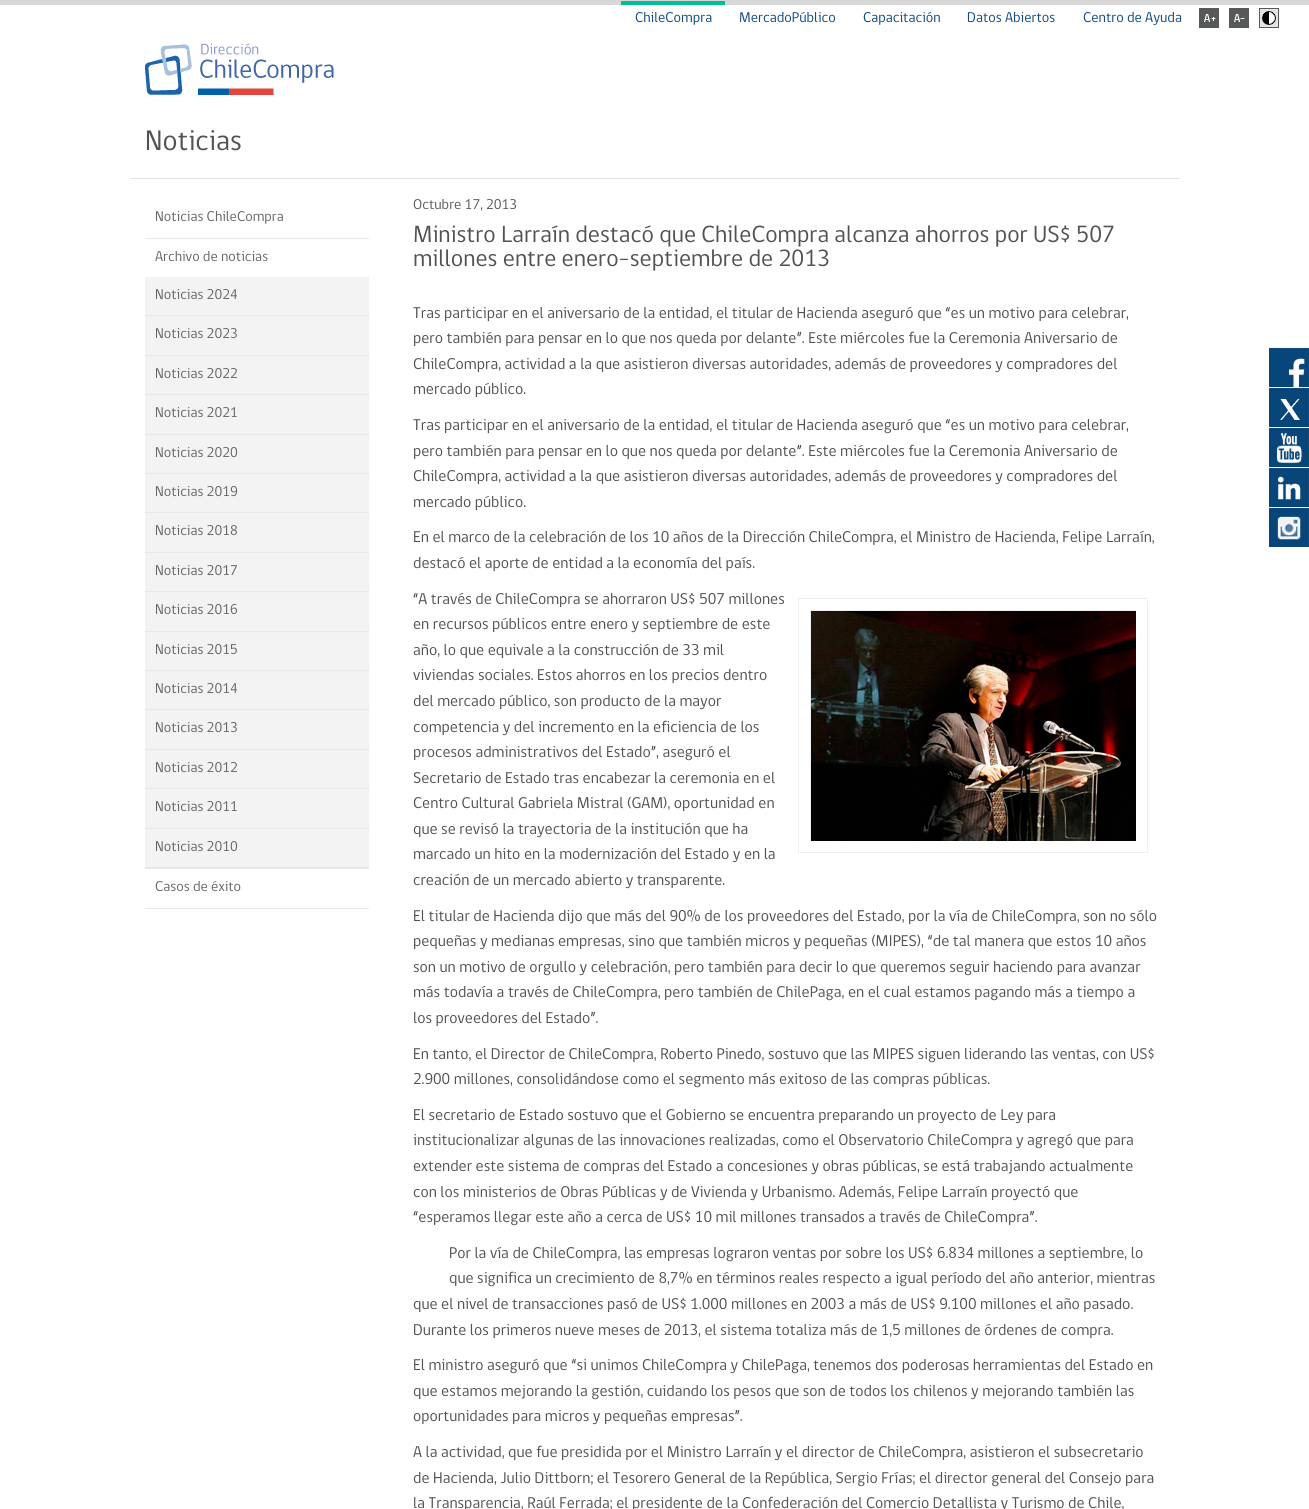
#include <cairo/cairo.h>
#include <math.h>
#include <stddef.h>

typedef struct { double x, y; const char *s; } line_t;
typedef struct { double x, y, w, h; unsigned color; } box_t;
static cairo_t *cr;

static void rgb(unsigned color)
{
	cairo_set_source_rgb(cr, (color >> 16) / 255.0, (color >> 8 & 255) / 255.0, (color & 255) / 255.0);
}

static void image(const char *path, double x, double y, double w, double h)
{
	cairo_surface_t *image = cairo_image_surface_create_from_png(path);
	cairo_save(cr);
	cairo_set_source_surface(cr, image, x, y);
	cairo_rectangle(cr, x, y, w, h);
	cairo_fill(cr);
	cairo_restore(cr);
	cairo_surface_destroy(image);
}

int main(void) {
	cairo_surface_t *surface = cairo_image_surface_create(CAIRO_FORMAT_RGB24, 1309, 1509);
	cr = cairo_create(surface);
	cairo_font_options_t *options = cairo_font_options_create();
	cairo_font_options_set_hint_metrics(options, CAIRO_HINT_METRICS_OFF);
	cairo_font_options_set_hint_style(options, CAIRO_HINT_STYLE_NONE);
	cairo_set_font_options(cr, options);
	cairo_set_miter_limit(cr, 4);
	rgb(0xffffff);
	cairo_paint(cr);
	{
		static const box_t items[] = {
			{0, 0, 1309, 5, 0xd8d8d8},
			{621, 1, 105, 4, 0x00bd9b},
			{725, 1, 1, 4, 0xd8d8d8},
		};
		for (size_t i = 0; i < sizeof items / sizeof *items; i++) {
			rgb(items[i].color);
			cairo_rectangle(cr, items[i].x, items[i].y, items[i].w, items[i].h);
			cairo_fill(cr);
		}
	}
	image("img/1.png", 1199, 8, 20, 20);
	image("img/2.png", 1229, 8, 20, 20);
	image("img/3.png", 1259, 8, 20, 20);
	image("img/4.png", 145, 43, 189, 52);
	image("img/5.png", 1269, 347, 40, 40);
	image("img/6.png", 1269, 387, 40, 40);
	image("img/7.png", 1269, 427, 40, 40);
	image("img/8.png", 1269, 467, 40, 40);
	image("img/9.png", 1269, 507, 40, 40);
	{
		static const box_t items[] = {
			{130, 178, 1050, 1, 0xe4e4e4},
			{145, 238, 224, 1, 0xe8e8e8},
			{145, 867, 224, 2, 0xe8e8e8},
			{145, 277, 224, 590, 0xf3f3f3},
			{145, 315, 224, 1, 0xe8e8e8},
			{145, 355, 224, 1, 0xe8e8e8},
			{145, 394, 224, 1, 0xe8e8e8},
			{145, 434, 224, 1, 0xe8e8e8},
			{145, 473, 224, 1, 0xe8e8e8},
			{145, 512, 224, 1, 0xe8e8e8},
			{145, 552, 224, 1, 0xe8e8e8},
			{145, 591, 224, 1, 0xe8e8e8},
			{145, 631, 224, 1, 0xe8e8e8},
			{145, 670, 224, 1, 0xe8e8e8},
			{145, 709, 224, 1, 0xe8e8e8},
			{145, 749, 224, 1, 0xe8e8e8},
			{145, 788, 224, 1, 0xe8e8e8},
			{145, 828, 224, 1, 0xe8e8e8},
			{145, 908, 224, 1, 0xe8e8e8},
		};
		for (size_t i = 0; i < sizeof items / sizeof *items; i++) {
			rgb(items[i].color);
			cairo_rectangle(cr, items[i].x, items[i].y, items[i].w, items[i].h);
			cairo_fill(cr);
		}
	}
	image("img/10.png", 798, 598, 350, 255);
	cairo_select_font_face(cr, "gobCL", CAIRO_FONT_SLANT_NORMAL, CAIRO_FONT_WEIGHT_NORMAL);
	cairo_set_font_size(cr, 14.5);
	rgb(0x0f4980);
	{
		static const line_t items[] = {
			{635, 22, "ChileCompra"},
			{739, 22, "MercadoPúblico"},
			{863, 22, "Capacitación"},
			{967, 22, "Datos Abiertos"},
			{1083, 22, "Centro de Ayuda"},
		};
		for (size_t i = 0; i < sizeof items / sizeof *items; i++) {
			cairo_move_to(cr, items[i].x, items[i].y);
			cairo_show_text(cr, items[i].s);
		}
	}
	cairo_set_font_size(cr, 29);
	rgb(0x525252);
	cairo_move_to(cr, 145, 150);
	cairo_show_text(cr, "Noticias");
	cairo_set_font_size(cr, 14.5);
	rgb(0x666666);
	{
		static const line_t items[] = {
			{155, 221, "Noticias ChileCompra"},
			{155, 261, "Archivo de noticias"},
			{155, 299, "Noticias 2024"},
			{155, 338, "Noticias 2023"},
			{155, 378, "Noticias 2022"},
			{155, 417, "Noticias 2021"},
			{155, 457, "Noticias 2020"},
			{155, 496, "Noticias 2019"},
			{155, 535, "Noticias 2018"},
			{155, 575, "Noticias 2017"},
			{155, 614, "Noticias 2016"},
			{155, 654, "Noticias 2015"},
			{155, 693, "Noticias 2014"},
			{155, 732, "Noticias 2013"},
			{155, 772, "Noticias 2012"},
			{155, 811, "Noticias 2011"},
			{155, 851, "Noticias 2010"},
			{155, 891, "Casos de éxito"},
		};
		for (size_t i = 0; i < sizeof items / sizeof *items; i++) {
			cairo_move_to(cr, items[i].x, items[i].y);
			cairo_show_text(cr, items[i].s);
		}
	}
	rgb(0x585858);
	cairo_move_to(cr, 413, 209);
	cairo_show_text(cr, "Octubre 17, 2013");
	cairo_set_font_size(cr, 24);
	rgb(0x525252);
	cairo_move_to(cr, 413, 242);
	cairo_show_text(cr, "Ministro Larraín destacó que ChileCompra alcanza ahorros por US$ 507");
	cairo_move_to(cr, 413, 266);
	cairo_show_text(cr, "millones entre enero-septiembre de 2013");
	cairo_set_font_size(cr, 16);
	{
		static const line_t items[] = {
			{413, 318, "Tras participar en el aniversario de la entidad, el titular de Hacienda aseguró que “es un motivo para celebrar,"},
			{413, 343, "pero también para pensar en lo que nos queda por delante”. Este miércoles fue la Ceremonia Aniversario de"},
			{413, 369, "ChileCompra, actividad a la que asistieron diversas autoridades, además de proveedores y compradores del"},
			{413, 394, "mercado público."},
			{413, 430, "Tras participar en el aniversario de la entidad, el titular de Hacienda aseguró que “es un motivo para celebrar,"},
			{413, 456, "pero también para pensar en lo que nos queda por delante”. Este miércoles fue la Ceremonia Aniversario de"},
			{413, 481, "ChileCompra, actividad a la que asistieron diversas autoridades, además de proveedores y compradores del"},
			{413, 507, "mercado público."},
			{413, 542, "En el marco de la celebración de los 10 años de la Dirección ChileCompra, el Ministro de Hacienda, Felipe Larraín,"},
			{413, 568, "destacó el aporte de entidad a la economía del país."},
			{413, 604, "“A través de ChileCompra se ahorraron US$ 507 millones"},
			{413, 629, "en recursos públicos entre enero y septiembre de este"},
			{413, 655, "año, lo que equivale a la construcción de 33 mil"},
			{413, 680, "viviendas sociales. Estos ahorros en los precios dentro"},
			{413, 706, "del mercado público, son producto de la mayor"},
			{413, 732, "competencia y del incremento en la eficiencia de los"},
			{413, 757, "procesos administrativos del Estado”, aseguró el"},
			{413, 783, "Secretario de Estado tras encabezar la ceremonia en el"},
			{413, 808, "Centro Cultural Gabriela Mistral (GAM), oportunidad en"},
			{413, 834, "que se revisó la trayectoria de la institución que ha"},
			{413, 859, "marcado un hito en la modernización del Estado y en la"},
			{413, 885, "creación de un mercado abierto y transparente."},
			{413, 921, "El titular de Hacienda dijo que más del 90% de los proveedores del Estado, por la vía de ChileCompra, son no sólo"},
			{413, 946, "pequeñas y medianas empresas, sino que también micros y pequeñas (MIPES), “de tal manera que estos 10 años"},
			{413, 972, "son un motivo de orgullo y celebración, pero también para decir lo que queremos seguir haciendo para avanzar"},
			{413, 997, "más todavía a través de ChileCompra, pero también de ChilePaga, en el cual estamos pagando más a tiempo a"},
			{413, 1023, "los proveedores del Estado”."},
			{413, 1059, "En tanto, el Director de ChileCompra, Roberto Pinedo, sostuvo que las MIPES siguen liderando las ventas, con US$"},
			{413, 1084, "2.900 millones, consolidándose como el segmento más exitoso de las compras públicas."},
			{413, 1120, "El secretario de Estado sostuvo que el Gobierno se encuentra preparando un proyecto de Ley para"},
			{413, 1145, "institucionalizar algunas de las innovaciones realizadas, como el Observatorio ChileCompra y agregó que para"},
			{413, 1171, "extender este sistema de compras del Estado a concesiones y obras públicas, se está trabajando actualmente"},
			{413, 1197, "con los ministerios de Obras Públicas y de Vivienda y Urbanismo. Además, Felipe Larraín proyectó que"},
			{413, 1222, "“esperamos llegar este año a cerca de US$ 10 mil millones transados a través de ChileCompra”."},
			{449, 1258, "Por la vía de ChileCompra, las empresas lograron ventas por sobre los US$ 6.834 millones a septiembre, lo"},
			{449, 1283, "que significa un crecimiento de 8,7% en términos reales respecto a igual período del año anterior, mientras"},
			{413, 1309, "que el nivel de transacciones pasó de US$ 1.000 millones en 2003 a más de US$ 9.100 millones el año pasado."},
			{413, 1335, "Durante los primeros nueve meses de 2013, el sistema totaliza más de 1,5 millones de órdenes de compra."},
			{413, 1370, "El ministro aseguró que “si unimos ChileCompra y ChilePaga, tenemos dos poderosas herramientas del Estado en"},
			{413, 1396, "que estamos mejorando la gestión, cuidando los pesos que son de todos los chilenos y mejorando también las"},
			{413, 1421, "oportunidades para micros y pequeñas empresas”."},
			{413, 1457, "A la actividad, que fue presidida por el Ministro Larraín y el director de ChileCompra, asistieron el subsecretario"},
			{413, 1483, "de Hacienda, Julio Dittborn; el Tesorero General de la República, Sergio Frías; el director general del Consejo para"},
			{413, 1508, "la Transparencia, Raúl Ferrada; el presidente de la Confederación del Comercio Detallista y Turismo de Chile,"},
		};
		for (size_t i = 0; i < sizeof items / sizeof *items; i++) {
			cairo_move_to(cr, items[i].x, items[i].y);
			cairo_show_text(cr, items[i].s);
		}
	}
	cairo_surface_write_to_png(surface, "page.png");
	cairo_font_options_destroy(options);
	cairo_destroy(cr);
	cairo_surface_destroy(surface);
	return 0;
}
